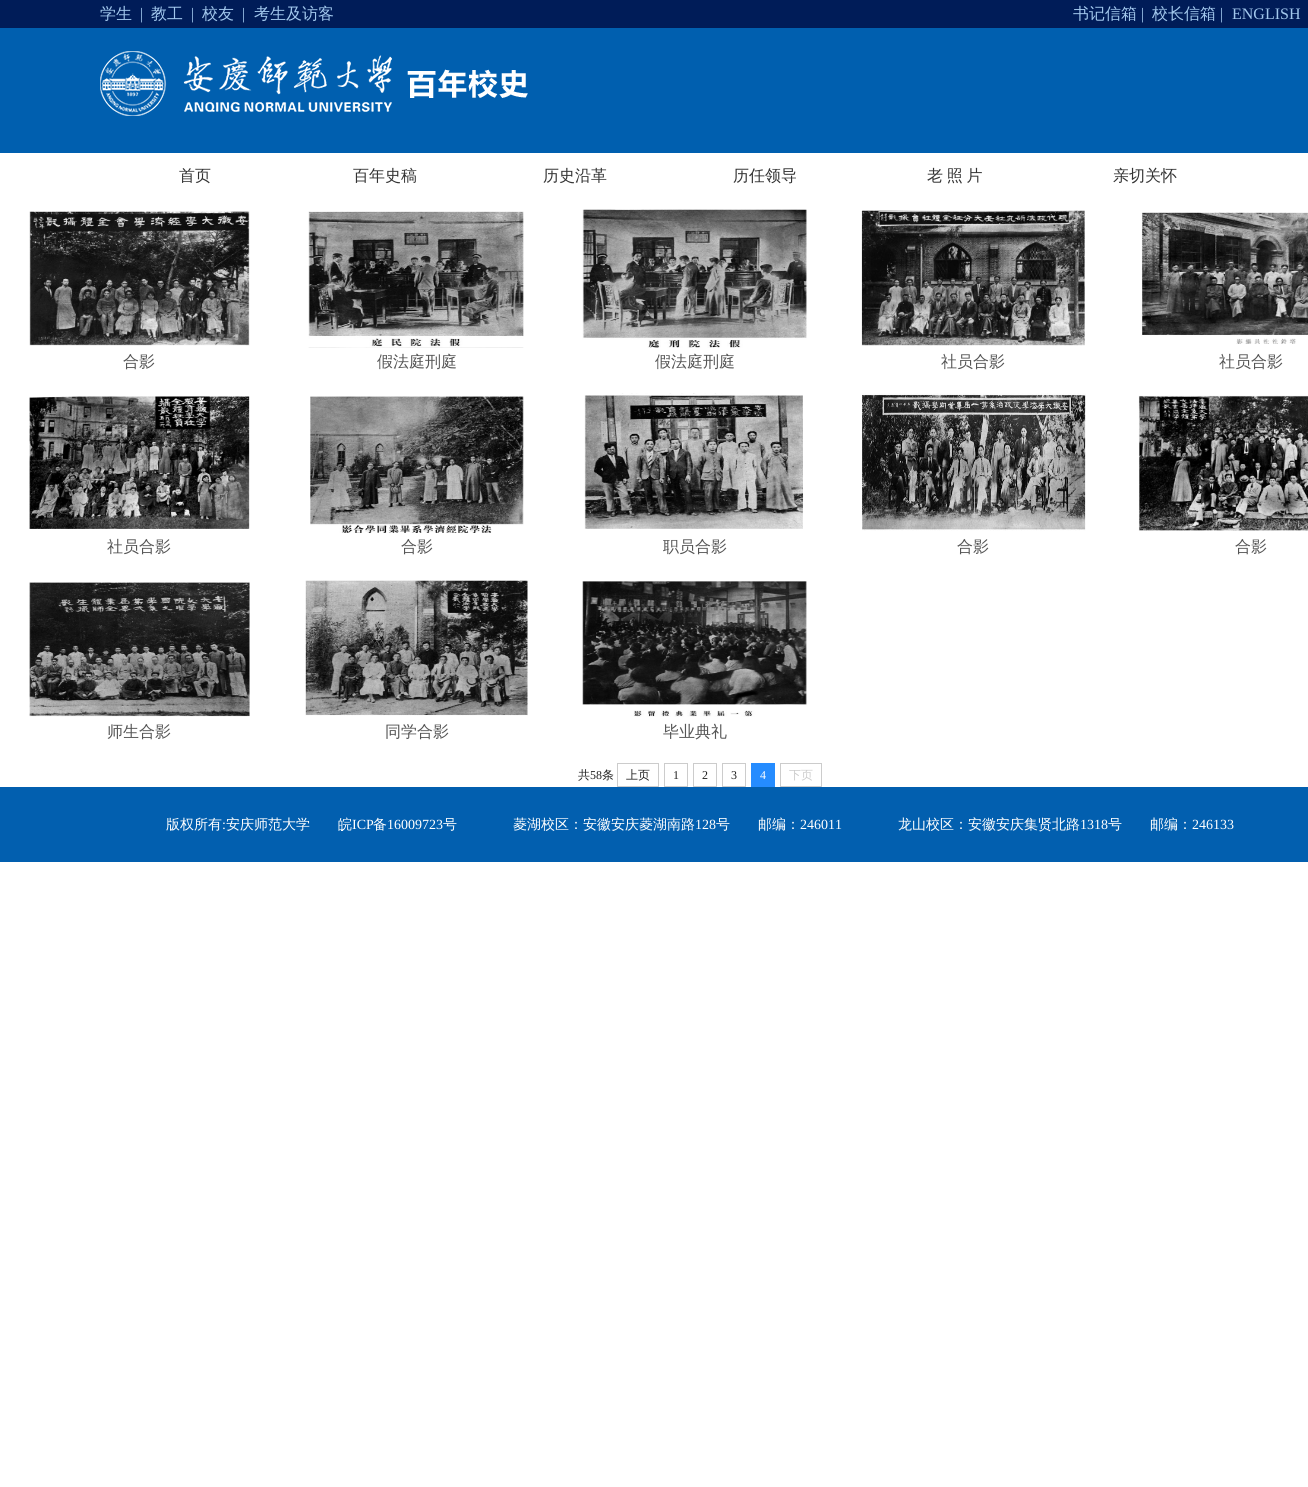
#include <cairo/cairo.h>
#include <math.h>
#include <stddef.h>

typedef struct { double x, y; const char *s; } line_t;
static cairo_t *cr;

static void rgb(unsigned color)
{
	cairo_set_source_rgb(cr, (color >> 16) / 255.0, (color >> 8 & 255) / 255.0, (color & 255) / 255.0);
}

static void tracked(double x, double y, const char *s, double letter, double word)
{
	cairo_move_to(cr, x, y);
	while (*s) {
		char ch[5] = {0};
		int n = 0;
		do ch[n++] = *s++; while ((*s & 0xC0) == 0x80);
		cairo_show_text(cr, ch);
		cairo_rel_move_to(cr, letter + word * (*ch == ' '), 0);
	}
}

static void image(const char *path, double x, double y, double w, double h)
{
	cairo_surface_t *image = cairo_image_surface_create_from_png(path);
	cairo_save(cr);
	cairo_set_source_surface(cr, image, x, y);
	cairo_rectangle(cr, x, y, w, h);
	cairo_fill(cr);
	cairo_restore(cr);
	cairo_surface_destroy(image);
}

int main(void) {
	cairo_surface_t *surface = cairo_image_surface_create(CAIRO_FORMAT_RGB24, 1308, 1487);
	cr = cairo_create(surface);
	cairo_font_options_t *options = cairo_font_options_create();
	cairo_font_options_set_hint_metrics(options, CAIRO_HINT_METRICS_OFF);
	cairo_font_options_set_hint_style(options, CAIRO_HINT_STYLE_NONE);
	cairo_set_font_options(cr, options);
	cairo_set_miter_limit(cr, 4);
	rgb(0xffffff);
	cairo_paint(cr);
	rgb(0x001c58);
	cairo_rectangle(cr, 0, 0, 1308, 28);
	cairo_fill(cr);
	rgb(0x005faf);
	cairo_rectangle(cr, 0, 28, 1308, 125);
	cairo_fill(cr);
	image("img/1.png", 100, 51, 428, 65);
	image("img/2.png", 29, 211, 221, 135);
	image("img/3.png", 308, 211, 216, 137);
	image("img/4.png", 582, 209, 225, 139);
	image("img/5.png", 861, 210, 224, 136);
	image("img/6.png", 1141, 212, 167, 132);
	image("img/7.png", 29, 396, 221, 133);
	image("img/8.png", 310, 396, 214, 137);
	image("img/9.png", 584, 393, 220, 136);
	image("img/10.png", 862, 393, 224, 138);
	image("img/11.png", 1138, 395, 170, 136);
	image("img/12.png", 29, 582, 221, 135);
	image("img/13.png", 305, 580, 223, 136);
	image("img/14.png", 582, 581, 225, 136);
	cairo_rectangle(cr, 617.5, 763.5, 41, 23);
	rgb(0xcccccc);
	cairo_set_line_width(cr, 1);
	cairo_stroke(cr);
	cairo_rectangle(cr, 664.5, 763.5, 23, 23);
	cairo_stroke(cr);
	cairo_rectangle(cr, 693.5, 763.5, 23, 23);
	cairo_stroke(cr);
	cairo_rectangle(cr, 722.5, 763.5, 23, 23);
	cairo_stroke(cr);
	rgb(0x258cff);
	cairo_rectangle(cr, 751, 763, 24, 24);
	cairo_fill(cr);
	cairo_rectangle(cr, 780.5, 763.5, 41, 23);
	rgb(0xcccccc);
	cairo_stroke(cr);
	rgb(0x025faf);
	cairo_rectangle(cr, 0, 787, 1308, 75);
	cairo_fill(cr);
	cairo_select_font_face(cr, "WenQuanYi Zen Hei Medium", CAIRO_FONT_SLANT_NORMAL, CAIRO_FONT_WEIGHT_NORMAL);
	cairo_set_font_size(cr, 16);
	rgb(0xa2c8ed);
	cairo_move_to(cr, 100, 19);
	cairo_show_text(cr, "学生");
	cairo_select_font_face(cr, "Liberation Serif", CAIRO_FONT_SLANT_NORMAL, CAIRO_FONT_WEIGHT_NORMAL);
	cairo_move_to(cr, 140, 19);
	cairo_show_text(cr, "|");
	cairo_select_font_face(cr, "WenQuanYi Zen Hei Medium", CAIRO_FONT_SLANT_NORMAL, CAIRO_FONT_WEIGHT_NORMAL);
	cairo_move_to(cr, 151, 19);
	cairo_show_text(cr, "教工");
	cairo_select_font_face(cr, "Liberation Serif", CAIRO_FONT_SLANT_NORMAL, CAIRO_FONT_WEIGHT_NORMAL);
	cairo_move_to(cr, 191, 19);
	cairo_show_text(cr, "|");
	cairo_select_font_face(cr, "WenQuanYi Zen Hei Medium", CAIRO_FONT_SLANT_NORMAL, CAIRO_FONT_WEIGHT_NORMAL);
	cairo_move_to(cr, 202, 19);
	cairo_show_text(cr, "校友");
	cairo_select_font_face(cr, "Liberation Serif", CAIRO_FONT_SLANT_NORMAL, CAIRO_FONT_WEIGHT_NORMAL);
	cairo_move_to(cr, 242, 19);
	cairo_show_text(cr, "|");
	cairo_select_font_face(cr, "WenQuanYi Zen Hei Medium", CAIRO_FONT_SLANT_NORMAL, CAIRO_FONT_WEIGHT_NORMAL);
	cairo_move_to(cr, 254, 19);
	cairo_show_text(cr, "考生及访客");
	cairo_move_to(cr, 1073, 19);
	cairo_show_text(cr, "书记信箱");
	cairo_select_font_face(cr, "Liberation Serif", CAIRO_FONT_SLANT_NORMAL, CAIRO_FONT_WEIGHT_NORMAL);
	cairo_move_to(cr, 1141, 19);
	cairo_show_text(cr, "|");
	cairo_select_font_face(cr, "WenQuanYi Zen Hei Medium", CAIRO_FONT_SLANT_NORMAL, CAIRO_FONT_WEIGHT_NORMAL);
	cairo_move_to(cr, 1152, 19);
	cairo_show_text(cr, "校长信箱");
	cairo_select_font_face(cr, "Liberation Serif", CAIRO_FONT_SLANT_NORMAL, CAIRO_FONT_WEIGHT_NORMAL);
	cairo_move_to(cr, 1220, 19);
	cairo_show_text(cr, "|");
	cairo_move_to(cr, 1232, 19);
	cairo_show_text(cr, "ENGLISH");
	cairo_select_font_face(cr, "WenQuanYi Zen Hei Medium", CAIRO_FONT_SLANT_NORMAL, CAIRO_FONT_WEIGHT_NORMAL);
	rgb(0x333333);
	{
		static const line_t items[] = {
			{179, 181, "首页"},
			{353, 181, "百年史稿"},
			{543, 181, "历史沿革"},
			{733, 181, "历任领导"},
		};
		for (size_t i = 0; i < sizeof items / sizeof *items; i++) {
			cairo_move_to(cr, items[i].x, items[i].y);
			cairo_show_text(cr, items[i].s);
		}
	}
	tracked(927, 181, "老 照 片", 0, -1);
	cairo_move_to(cr, 1113, 181);
	cairo_show_text(cr, "亲切关怀");
	rgb(0x555555);
	{
		static const line_t items[] = {
			{123, 367, "合影"},
			{377, 367, "假法庭刑庭"},
			{655, 367, "假法庭刑庭"},
			{941, 367, "社员合影"},
			{1219, 367, "社员合影"},
			{107, 552, "社员合影"},
			{401, 552, "合影"},
			{663, 552, "职员合影"},
			{957, 552, "合影"},
			{1235, 552, "合影"},
			{107, 737, "师生合影"},
			{385, 737, "同学合影"},
			{663, 737, "毕业典礼"},
		};
		for (size_t i = 0; i < sizeof items / sizeof *items; i++) {
			cairo_move_to(cr, items[i].x, items[i].y);
			cairo_show_text(cr, items[i].s);
		}
	}
	cairo_set_font_size(cr, 12);
	rgb(0x222222);
	cairo_move_to(cr, 578, 779);
	cairo_show_text(cr, "共");
	cairo_select_font_face(cr, "Liberation Serif", CAIRO_FONT_SLANT_NORMAL, CAIRO_FONT_WEIGHT_NORMAL);
	cairo_move_to(cr, 590, 779);
	cairo_show_text(cr, "58");
	cairo_select_font_face(cr, "WenQuanYi Zen Hei Medium", CAIRO_FONT_SLANT_NORMAL, CAIRO_FONT_WEIGHT_NORMAL);
	cairo_move_to(cr, 602, 779);
	cairo_show_text(cr, "条");
	cairo_move_to(cr, 626, 779);
	cairo_show_text(cr, "上页");
	cairo_select_font_face(cr, "Liberation Serif", CAIRO_FONT_SLANT_NORMAL, CAIRO_FONT_WEIGHT_NORMAL);
	{
		static const line_t items[] = {
			{673, 779, "1"},
			{702, 779, "2"},
			{731, 779, "3"},
		};
		for (size_t i = 0; i < sizeof items / sizeof *items; i++) {
			cairo_move_to(cr, items[i].x, items[i].y);
			cairo_show_text(cr, items[i].s);
		}
	}
	rgb(0xffffff);
	cairo_move_to(cr, 760, 779);
	cairo_show_text(cr, "4");
	cairo_select_font_face(cr, "WenQuanYi Zen Hei Medium", CAIRO_FONT_SLANT_NORMAL, CAIRO_FONT_WEIGHT_NORMAL);
	rgb(0xcccccc);
	cairo_move_to(cr, 789, 779);
	cairo_show_text(cr, "下页");
	cairo_set_font_size(cr, 14);
	rgb(0xffffff);
	cairo_move_to(cr, 166, 829);
	cairo_show_text(cr, "版权所有");
	cairo_select_font_face(cr, "Liberation Serif", CAIRO_FONT_SLANT_NORMAL, CAIRO_FONT_WEIGHT_NORMAL);
	cairo_move_to(cr, 222, 829);
	cairo_show_text(cr, ":");
	cairo_select_font_face(cr, "WenQuanYi Zen Hei Medium", CAIRO_FONT_SLANT_NORMAL, CAIRO_FONT_WEIGHT_NORMAL);
	cairo_move_to(cr, 226, 829);
	cairo_show_text(cr, "安庆师范大学　　皖");
	cairo_select_font_face(cr, "Liberation Serif", CAIRO_FONT_SLANT_NORMAL, CAIRO_FONT_WEIGHT_NORMAL);
	cairo_move_to(cr, 352, 829);
	cairo_show_text(cr, "ICP");
	cairo_select_font_face(cr, "WenQuanYi Zen Hei Medium", CAIRO_FONT_SLANT_NORMAL, CAIRO_FONT_WEIGHT_NORMAL);
	cairo_move_to(cr, 373, 829);
	cairo_show_text(cr, "备");
	cairo_select_font_face(cr, "Liberation Serif", CAIRO_FONT_SLANT_NORMAL, CAIRO_FONT_WEIGHT_NORMAL);
	cairo_move_to(cr, 387, 829);
	cairo_show_text(cr, "16009723");
	cairo_select_font_face(cr, "WenQuanYi Zen Hei Medium", CAIRO_FONT_SLANT_NORMAL, CAIRO_FONT_WEIGHT_NORMAL);
	cairo_move_to(cr, 443, 829);
	cairo_show_text(cr, "号　　　　菱湖校区：安徽安庆菱湖南路");
	cairo_select_font_face(cr, "Liberation Serif", CAIRO_FONT_SLANT_NORMAL, CAIRO_FONT_WEIGHT_NORMAL);
	cairo_move_to(cr, 695, 829);
	cairo_show_text(cr, "128");
	cairo_select_font_face(cr, "WenQuanYi Zen Hei Medium", CAIRO_FONT_SLANT_NORMAL, CAIRO_FONT_WEIGHT_NORMAL);
	cairo_move_to(cr, 716, 829);
	cairo_show_text(cr, "号　　邮编：");
	cairo_select_font_face(cr, "Liberation Serif", CAIRO_FONT_SLANT_NORMAL, CAIRO_FONT_WEIGHT_NORMAL);
	cairo_move_to(cr, 800, 829);
	cairo_show_text(cr, "246011");
	cairo_select_font_face(cr, "WenQuanYi Zen Hei Medium", CAIRO_FONT_SLANT_NORMAL, CAIRO_FONT_WEIGHT_NORMAL);
	cairo_move_to(cr, 898, 829);
	cairo_show_text(cr, "龙山校区：安徽安庆集贤北路");
	cairo_select_font_face(cr, "Liberation Serif", CAIRO_FONT_SLANT_NORMAL, CAIRO_FONT_WEIGHT_NORMAL);
	cairo_move_to(cr, 1080, 829);
	cairo_show_text(cr, "1318");
	cairo_select_font_face(cr, "WenQuanYi Zen Hei Medium", CAIRO_FONT_SLANT_NORMAL, CAIRO_FONT_WEIGHT_NORMAL);
	cairo_move_to(cr, 1108, 829);
	cairo_show_text(cr, "号　　邮编：");
	cairo_select_font_face(cr, "Liberation Serif", CAIRO_FONT_SLANT_NORMAL, CAIRO_FONT_WEIGHT_NORMAL);
	cairo_move_to(cr, 1192, 829);
	cairo_show_text(cr, "246133");
	cairo_surface_write_to_png(surface, "page.png");
	cairo_font_options_destroy(options);
	cairo_destroy(cr);
	cairo_surface_destroy(surface);
	return 0;
}
